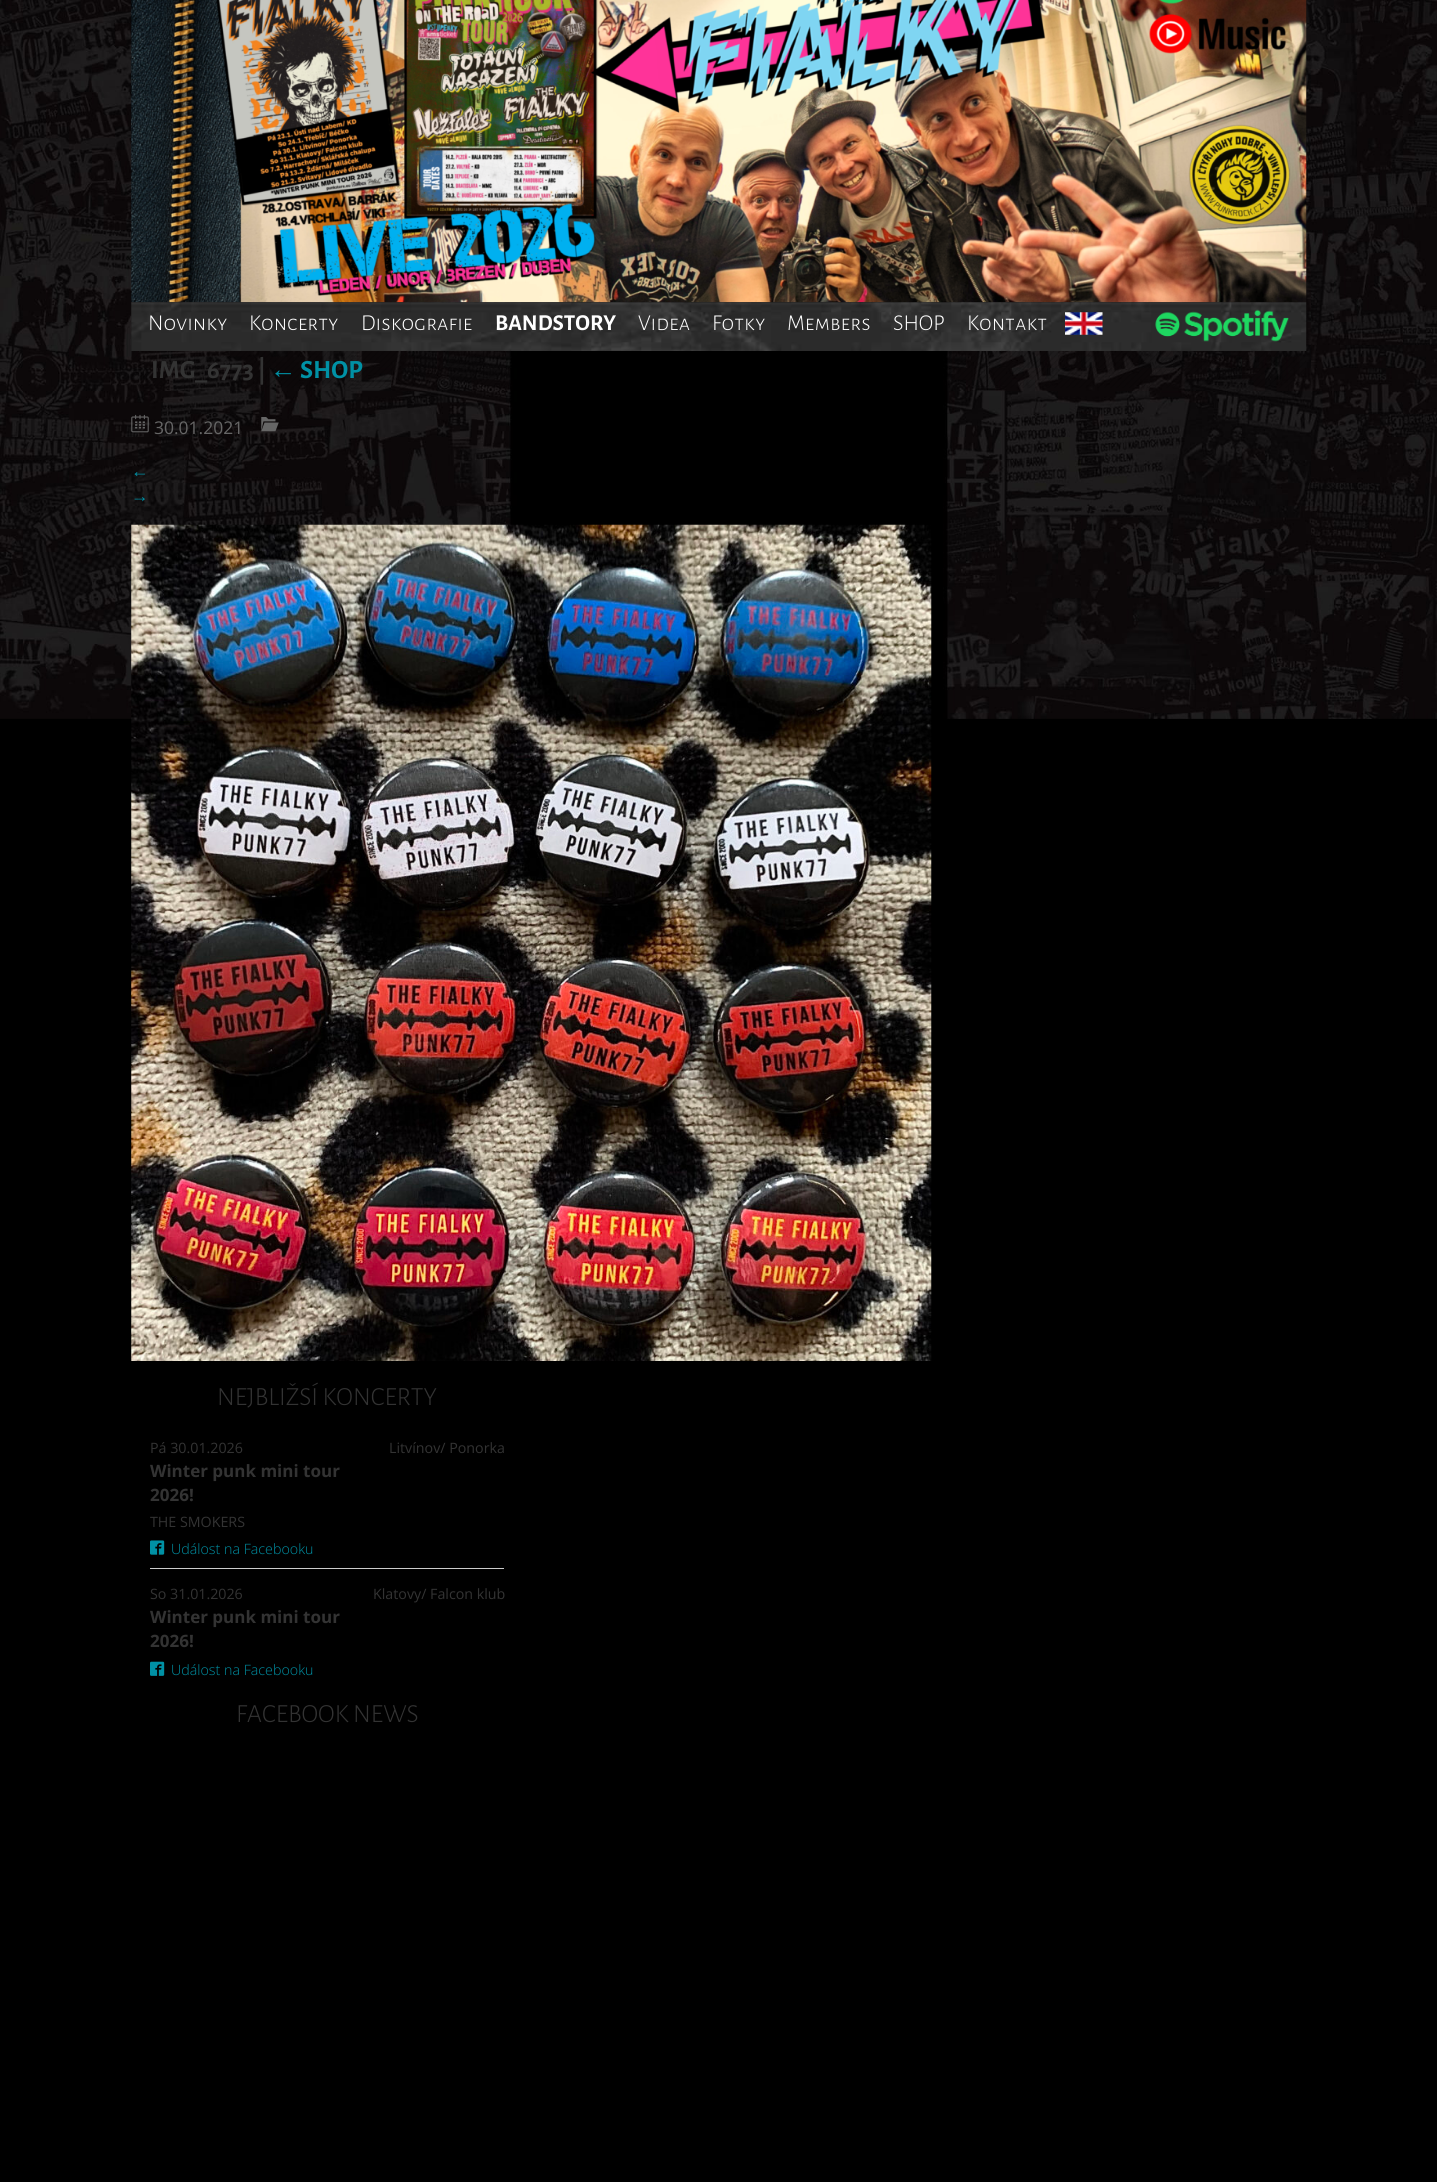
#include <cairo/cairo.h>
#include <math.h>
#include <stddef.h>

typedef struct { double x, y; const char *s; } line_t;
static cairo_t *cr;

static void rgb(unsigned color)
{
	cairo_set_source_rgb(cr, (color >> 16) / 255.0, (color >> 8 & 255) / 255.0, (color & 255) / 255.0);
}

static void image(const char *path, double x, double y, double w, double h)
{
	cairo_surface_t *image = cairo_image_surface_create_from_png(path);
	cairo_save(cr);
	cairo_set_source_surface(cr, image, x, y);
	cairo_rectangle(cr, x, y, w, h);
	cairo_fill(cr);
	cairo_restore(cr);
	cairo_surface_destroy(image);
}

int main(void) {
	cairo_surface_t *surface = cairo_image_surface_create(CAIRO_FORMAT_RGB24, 1437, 2182);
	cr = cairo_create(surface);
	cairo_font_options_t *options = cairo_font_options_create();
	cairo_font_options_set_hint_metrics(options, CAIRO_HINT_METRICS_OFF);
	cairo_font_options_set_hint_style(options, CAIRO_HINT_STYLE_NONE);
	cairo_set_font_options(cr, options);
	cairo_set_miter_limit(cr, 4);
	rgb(0x000000);
	cairo_paint(cr);
	image("img/1.png", 0, 0, 1437, 719);
	image("img/6.png", 133, 302, 1173, 86);
	image("img/2.png", 131, 0, 1176, 303);
	image("img/3.png", 131, 302, 1176, 49);
	image("img/4.png", 1065, 312, 38, 23);
	image("img/5.png", 1155, 309, 134, 33);
	image("img/7.png", 131, 414, 18, 19);
	image("img/8.png", 261, 417, 18, 15);
	image("img/9.png", 131, 524, 801, 837);
	rgb(0xcccccc);
	cairo_rectangle(cr, 150, 1568, 354, 1);
	cairo_fill(cr);
	image("img/10.png", 150, 1540, 15, 15);
	image("img/11.png", 150, 1661, 15, 15);
	cairo_select_font_face(cr, "Alegreya Sans SC Light", CAIRO_FONT_SLANT_NORMAL, CAIRO_FONT_WEIGHT_NORMAL);
	cairo_set_font_size(cr, 22.75);
	rgb(0xffffff);
	{
		static const line_t items[] = {
			{148, 330, "Novinky"},
			{249, 330, "Koncerty"},
			{361, 330, "Diskografie"},
		};
		for (size_t i = 0; i < sizeof items / sizeof *items; i++) {
			cairo_move_to(cr, items[i].x, items[i].y);
			cairo_show_text(cr, items[i].s);
		}
	}
	cairo_select_font_face(cr, "Alegreya Sans SC", CAIRO_FONT_SLANT_NORMAL, CAIRO_FONT_WEIGHT_BOLD);
	cairo_move_to(cr, 495, 330);
	cairo_show_text(cr, "BANDSTORY");
	cairo_select_font_face(cr, "Alegreya Sans SC Light", CAIRO_FONT_SLANT_NORMAL, CAIRO_FONT_WEIGHT_NORMAL);
	{
		static const line_t items[] = {
			{638, 330, "Videa"},
			{712, 330, "Fotky"},
			{787, 330, "Members"},
			{893, 330, "SHOP"},
			{967, 330, "Kontakt"},
		};
		for (size_t i = 0; i < sizeof items / sizeof *items; i++) {
			cairo_move_to(cr, items[i].x, items[i].y);
			cairo_show_text(cr, items[i].s);
		}
	}
	cairo_select_font_face(cr, "Alegreya Sans SC", CAIRO_FONT_SLANT_NORMAL, CAIRO_FONT_WEIGHT_BOLD);
	cairo_set_font_size(cr, 26.25);
	rgb(0x333333);
	cairo_move_to(cr, 151, 378);
	cairo_show_text(cr, "IMG_6773 |");
	cairo_select_font_face(cr, "Liberation Sans", CAIRO_FONT_SLANT_NORMAL, CAIRO_FONT_WEIGHT_BOLD);
	rgb(0x0091a5);
	cairo_move_to(cr, 270, 378);
	cairo_show_text(cr, "←");
	cairo_select_font_face(cr, "Alegreya Sans SC", CAIRO_FONT_SLANT_NORMAL, CAIRO_FONT_WEIGHT_BOLD);
	cairo_move_to(cr, 300, 378);
	cairo_show_text(cr, "SHOP");
	cairo_select_font_face(cr, "Open Sans", CAIRO_FONT_SLANT_NORMAL, CAIRO_FONT_WEIGHT_NORMAL);
	cairo_set_font_size(cr, 17.5);
	rgb(0x666666);
	cairo_move_to(cr, 154, 434);
	cairo_show_text(cr, "30.01.2021");
	cairo_select_font_face(cr, "Liberation Sans", CAIRO_FONT_SLANT_NORMAL, CAIRO_FONT_WEIGHT_NORMAL);
	rgb(0x0091a5);
	cairo_move_to(cr, 131, 477);
	cairo_show_text(cr, "←");
	cairo_move_to(cr, 131, 502);
	cairo_show_text(cr, "→");
	cairo_select_font_face(cr, "Alegreya Sans SC Light", CAIRO_FONT_SLANT_NORMAL, CAIRO_FONT_WEIGHT_NORMAL);
	cairo_set_font_size(cr, 26.25);
	rgb(0x333333);
	cairo_move_to(cr, 217, 1405);
	cairo_show_text(cr, "NEJBLIŽSÍ KONCERTY");
	cairo_select_font_face(cr, "Open Sans", CAIRO_FONT_SLANT_NORMAL, CAIRO_FONT_WEIGHT_NORMAL);
	cairo_set_font_size(cr, 14.25);
	cairo_move_to(cr, 150, 1453);
	cairo_show_text(cr, "Pá 30.01.2026");
	cairo_move_to(cr, 389, 1453);
	cairo_show_text(cr, "Litvínov/ Ponorka");
	cairo_select_font_face(cr, "Open Sans", CAIRO_FONT_SLANT_NORMAL, CAIRO_FONT_WEIGHT_BOLD);
	cairo_set_font_size(cr, 17);
	cairo_move_to(cr, 150, 1477);
	cairo_show_text(cr, "Winter punk mini tour");
	cairo_move_to(cr, 150, 1501);
	cairo_show_text(cr, "2026!");
	cairo_select_font_face(cr, "Open Sans", CAIRO_FONT_SLANT_NORMAL, CAIRO_FONT_WEIGHT_NORMAL);
	cairo_set_font_size(cr, 14.25);
	cairo_move_to(cr, 150, 1527);
	cairo_show_text(cr, "THE SMOKERS");
	cairo_select_font_face(cr, "Open Sans Light", CAIRO_FONT_SLANT_NORMAL, CAIRO_FONT_WEIGHT_NORMAL);
	rgb(0x0091a5);
	cairo_move_to(cr, 171, 1554);
	cairo_show_text(cr, "Událost na Facebooku");
	cairo_select_font_face(cr, "Open Sans", CAIRO_FONT_SLANT_NORMAL, CAIRO_FONT_WEIGHT_NORMAL);
	rgb(0x333333);
	cairo_move_to(cr, 150, 1599);
	cairo_show_text(cr, "So 31.01.2026");
	cairo_move_to(cr, 373, 1599);
	cairo_show_text(cr, "Klatovy/ Falcon klub");
	cairo_select_font_face(cr, "Open Sans", CAIRO_FONT_SLANT_NORMAL, CAIRO_FONT_WEIGHT_BOLD);
	cairo_set_font_size(cr, 17);
	cairo_move_to(cr, 150, 1623);
	cairo_show_text(cr, "Winter punk mini tour");
	cairo_move_to(cr, 150, 1647);
	cairo_show_text(cr, "2026!");
	cairo_select_font_face(cr, "Open Sans Light", CAIRO_FONT_SLANT_NORMAL, CAIRO_FONT_WEIGHT_NORMAL);
	cairo_set_font_size(cr, 14.25);
	rgb(0x0091a5);
	cairo_move_to(cr, 171, 1675);
	cairo_show_text(cr, "Událost na Facebooku");
	cairo_select_font_face(cr, "Alegreya Sans SC Light", CAIRO_FONT_SLANT_NORMAL, CAIRO_FONT_WEIGHT_NORMAL);
	cairo_set_font_size(cr, 26.25);
	rgb(0x333333);
	cairo_move_to(cr, 236, 1722);
	cairo_show_text(cr, "FACEBOOK NEWS");
	cairo_surface_write_to_png(surface, "page.png");
	cairo_font_options_destroy(options);
	cairo_destroy(cr);
	cairo_surface_destroy(surface);
	return 0;
}
